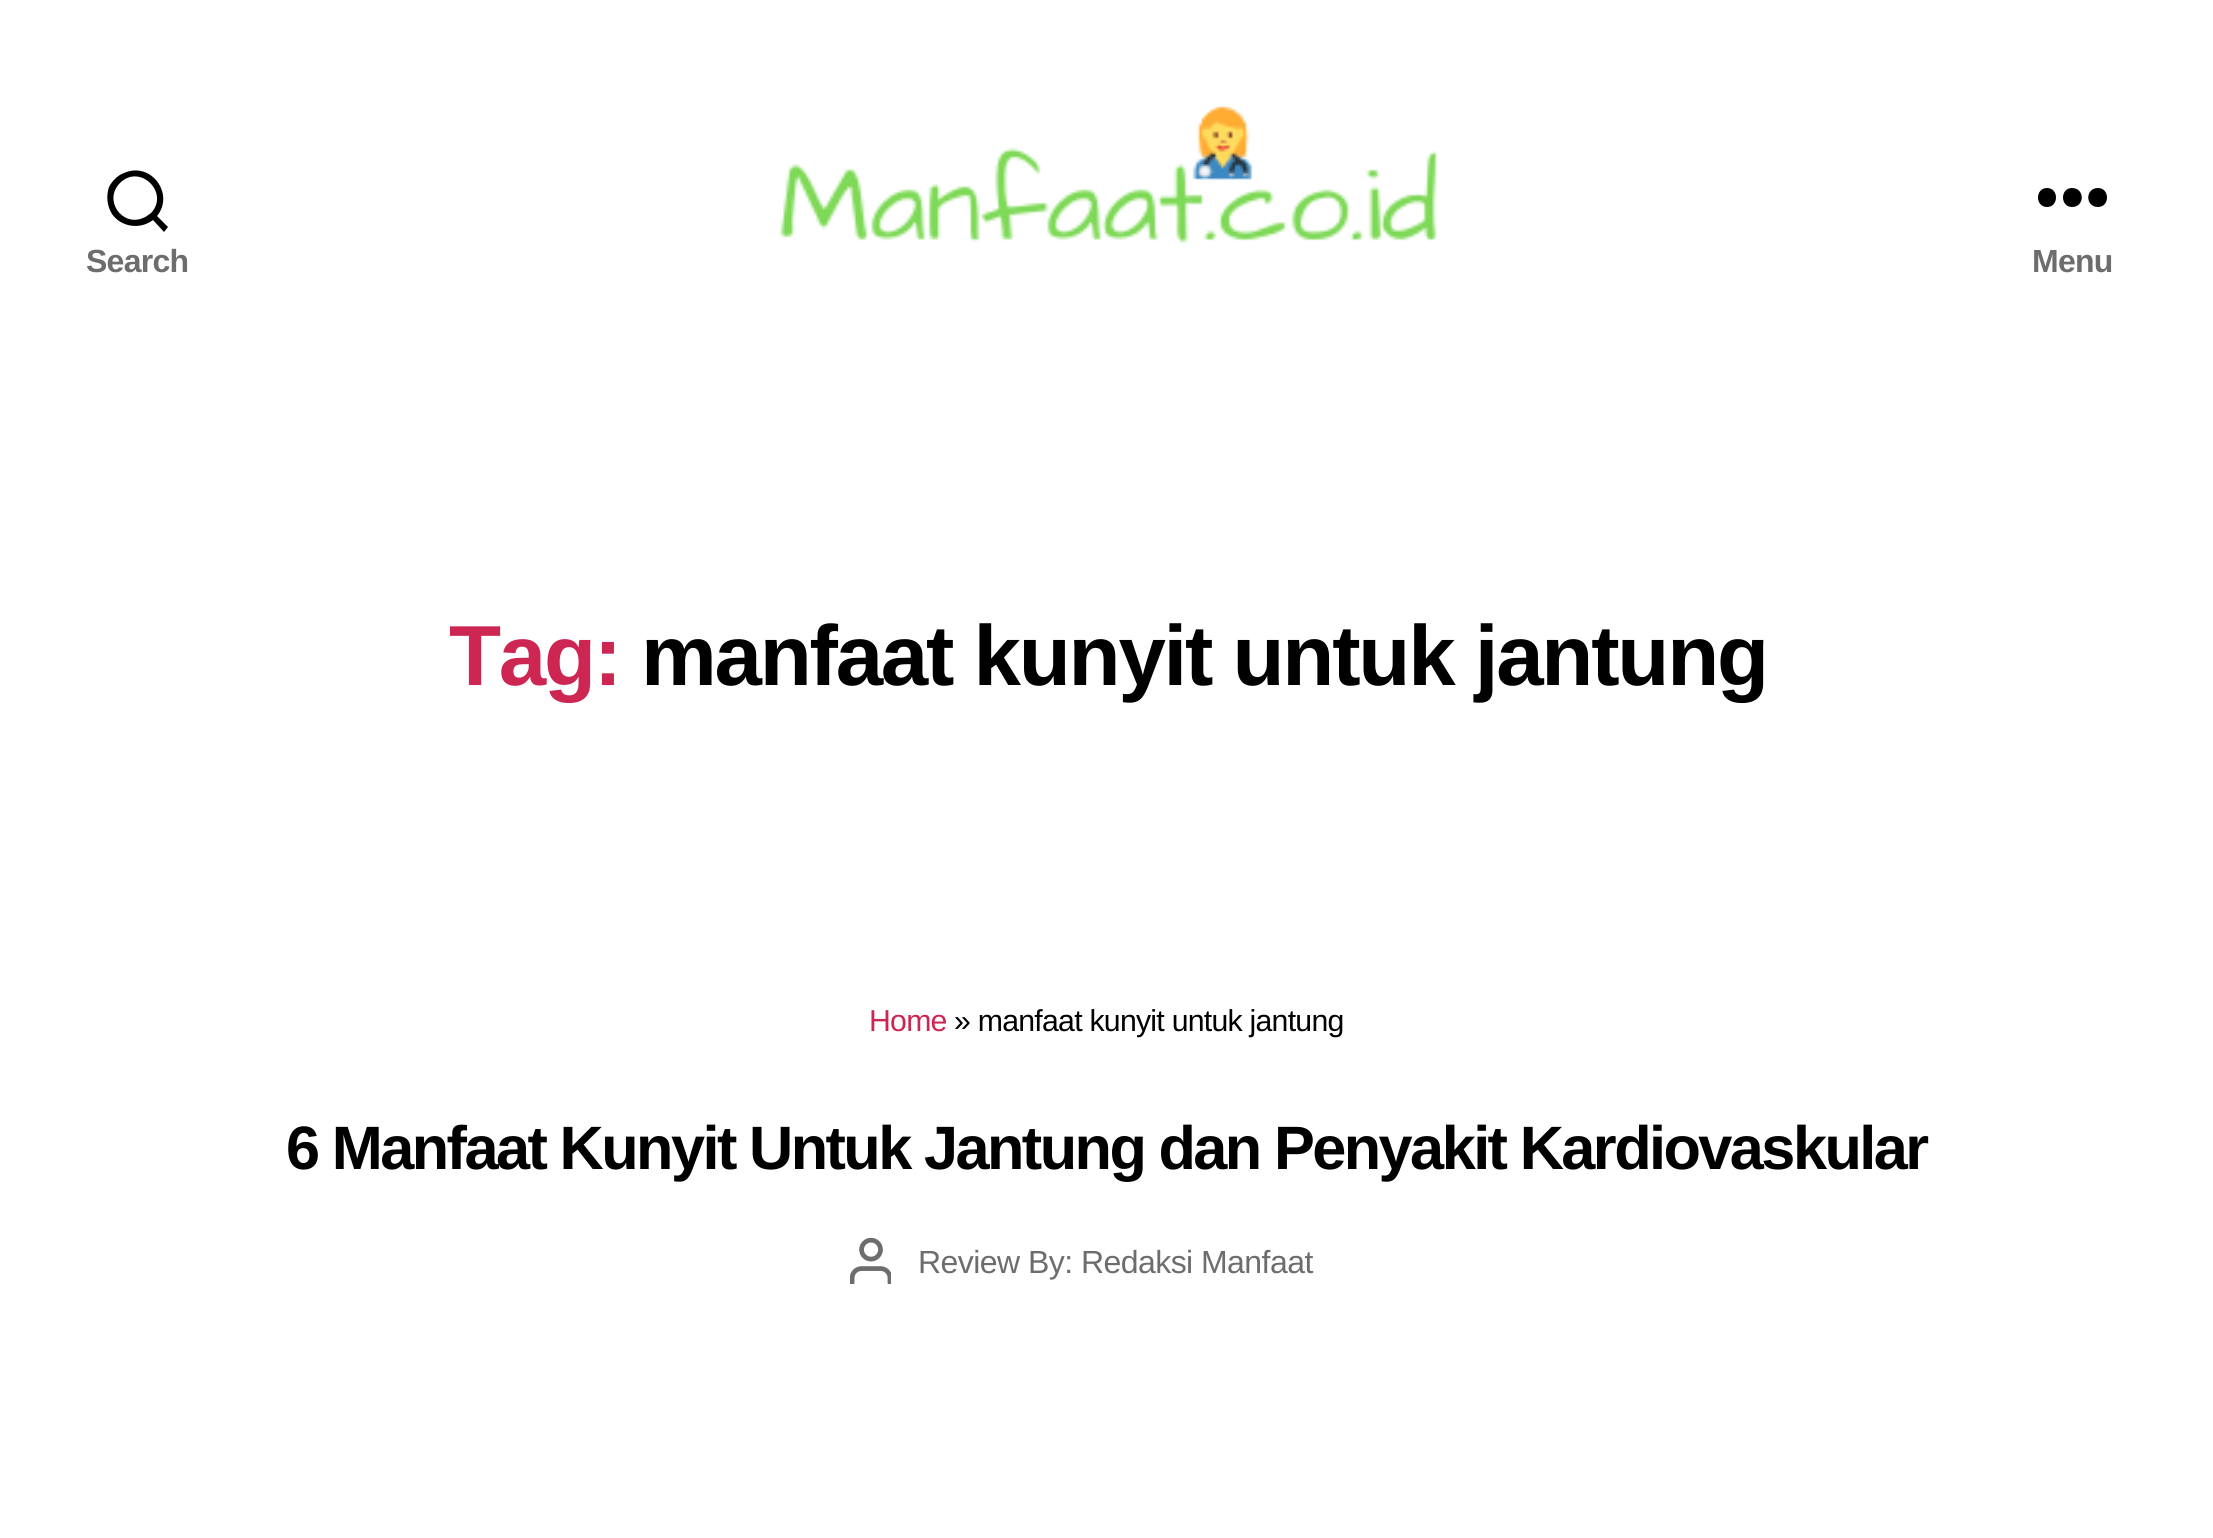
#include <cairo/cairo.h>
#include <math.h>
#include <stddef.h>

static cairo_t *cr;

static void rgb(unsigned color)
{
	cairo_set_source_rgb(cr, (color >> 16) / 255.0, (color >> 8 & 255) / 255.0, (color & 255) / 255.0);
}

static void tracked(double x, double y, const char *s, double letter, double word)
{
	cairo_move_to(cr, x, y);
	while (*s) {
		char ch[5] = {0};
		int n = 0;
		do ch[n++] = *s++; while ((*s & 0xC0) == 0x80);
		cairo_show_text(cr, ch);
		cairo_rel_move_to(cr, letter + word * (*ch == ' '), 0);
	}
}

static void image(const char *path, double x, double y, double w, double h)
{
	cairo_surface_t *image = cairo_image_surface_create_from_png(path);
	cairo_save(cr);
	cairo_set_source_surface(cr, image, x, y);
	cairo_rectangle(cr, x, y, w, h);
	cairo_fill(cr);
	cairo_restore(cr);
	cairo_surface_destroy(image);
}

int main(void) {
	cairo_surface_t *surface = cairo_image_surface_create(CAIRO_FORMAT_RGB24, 2213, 1538);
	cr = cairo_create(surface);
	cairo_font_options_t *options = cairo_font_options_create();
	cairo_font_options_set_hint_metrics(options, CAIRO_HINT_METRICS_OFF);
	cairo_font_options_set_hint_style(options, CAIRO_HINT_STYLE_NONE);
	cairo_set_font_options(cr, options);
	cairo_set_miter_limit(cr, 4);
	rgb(0xffffff);
	cairo_paint(cr);
	image("img/1.png", 780, 106, 657, 137);
	rgb(0x000000);
	cairo_new_path(cr);
	cairo_move_to(cr, 157, 216);
	cairo_line_to(cr, 168, 227);
	cairo_line_to(cr, 164, 232);
	cairo_line_to(cr, 153, 220);
	cairo_curve_to(cr, 140, 230, 121, 227, 112, 214);
	cairo_curve_to(cr, 107, 206, 106, 196, 109, 187);
	cairo_curve_to(cr, 112, 181, 118, 175, 124, 173);
	cairo_curve_to(cr, 151, 161, 175, 194, 157, 216);
	cairo_close_path(cr);
	cairo_move_to(cr, 151, 213);
	cairo_curve_to(cr, 170, 193, 140, 163, 120, 183);
	cairo_curve_to(cr, 103, 200, 122, 227, 143, 218);
	cairo_curve_to(cr, 146, 217, 148, 215, 151, 213);
	cairo_close_path(cr);
	cairo_fill(cr);
	cairo_set_fill_rule(cr, CAIRO_FILL_RULE_EVEN_ODD);
	cairo_new_path(cr);
	cairo_move_to(cr, 2047, 207);
	cairo_curve_to(cr, 2035, 207, 2035, 188, 2047, 188);
	cairo_curve_to(cr, 2059, 188, 2059, 207, 2047, 207);
	cairo_close_path(cr);
	cairo_move_to(cr, 2072, 207);
	cairo_curve_to(cr, 2060, 207, 2060, 188, 2072, 188);
	cairo_curve_to(cr, 2085, 188, 2085, 207, 2072, 207);
	cairo_close_path(cr);
	cairo_move_to(cr, 2098, 207);
	cairo_curve_to(cr, 2085, 207, 2085, 188, 2098, 188);
	cairo_curve_to(cr, 2110, 188, 2110, 207, 2098, 207);
	cairo_close_path(cr);
	cairo_fill(cr);
	image("img/2.png", 850, 1238, 41, 46);
	cairo_select_font_face(cr, "Liberation Sans", CAIRO_FONT_SLANT_NORMAL, CAIRO_FONT_WEIGHT_BOLD);
	cairo_set_font_size(cr, 32);
	rgb(0x6d6d6d);
	tracked(86, 272, "Search", -0.75, 0);
	tracked(2032, 272, "Menu", -0.75, 0);
	cairo_set_font_size(cr, 85.25);
	rgb(0xcd2653);
	tracked(449, 685, "Tag:", -2.25, 0);
	rgb(0x000000);
	tracked(641, 685, "manfaat kunyit untuk jantung", -2.25, 0);
	cairo_select_font_face(cr, "Liberation Sans", CAIRO_FONT_SLANT_NORMAL, CAIRO_FONT_WEIGHT_NORMAL);
	cairo_set_font_size(cr, 30.25);
	rgb(0xcd2653);
	tracked(869, 1031, "Home", -0.75, 0);
	rgb(0x000000);
	tracked(954, 1031, "» manfaat kunyit untuk jantung", -0.75, 0);
	cairo_select_font_face(cr, "Liberation Sans", CAIRO_FONT_SLANT_NORMAL, CAIRO_FONT_WEIGHT_BOLD);
	cairo_set_font_size(cr, 61.25);
	tracked(286, 1169, "6 Manfaat Kunyit Untuk Jantung dan Penyakit Kardiovaskular", -2.55, -0.25);
	cairo_select_font_face(cr, "Liberation Sans", CAIRO_FONT_SLANT_NORMAL, CAIRO_FONT_WEIGHT_NORMAL);
	cairo_set_font_size(cr, 32);
	rgb(0x6d6d6d);
	tracked(918, 1273, "Review By: Redaksi Manfaat", -0.55, 0);
	cairo_surface_write_to_png(surface, "page.png");
	cairo_font_options_destroy(options);
	cairo_destroy(cr);
	cairo_surface_destroy(surface);
	return 0;
}
